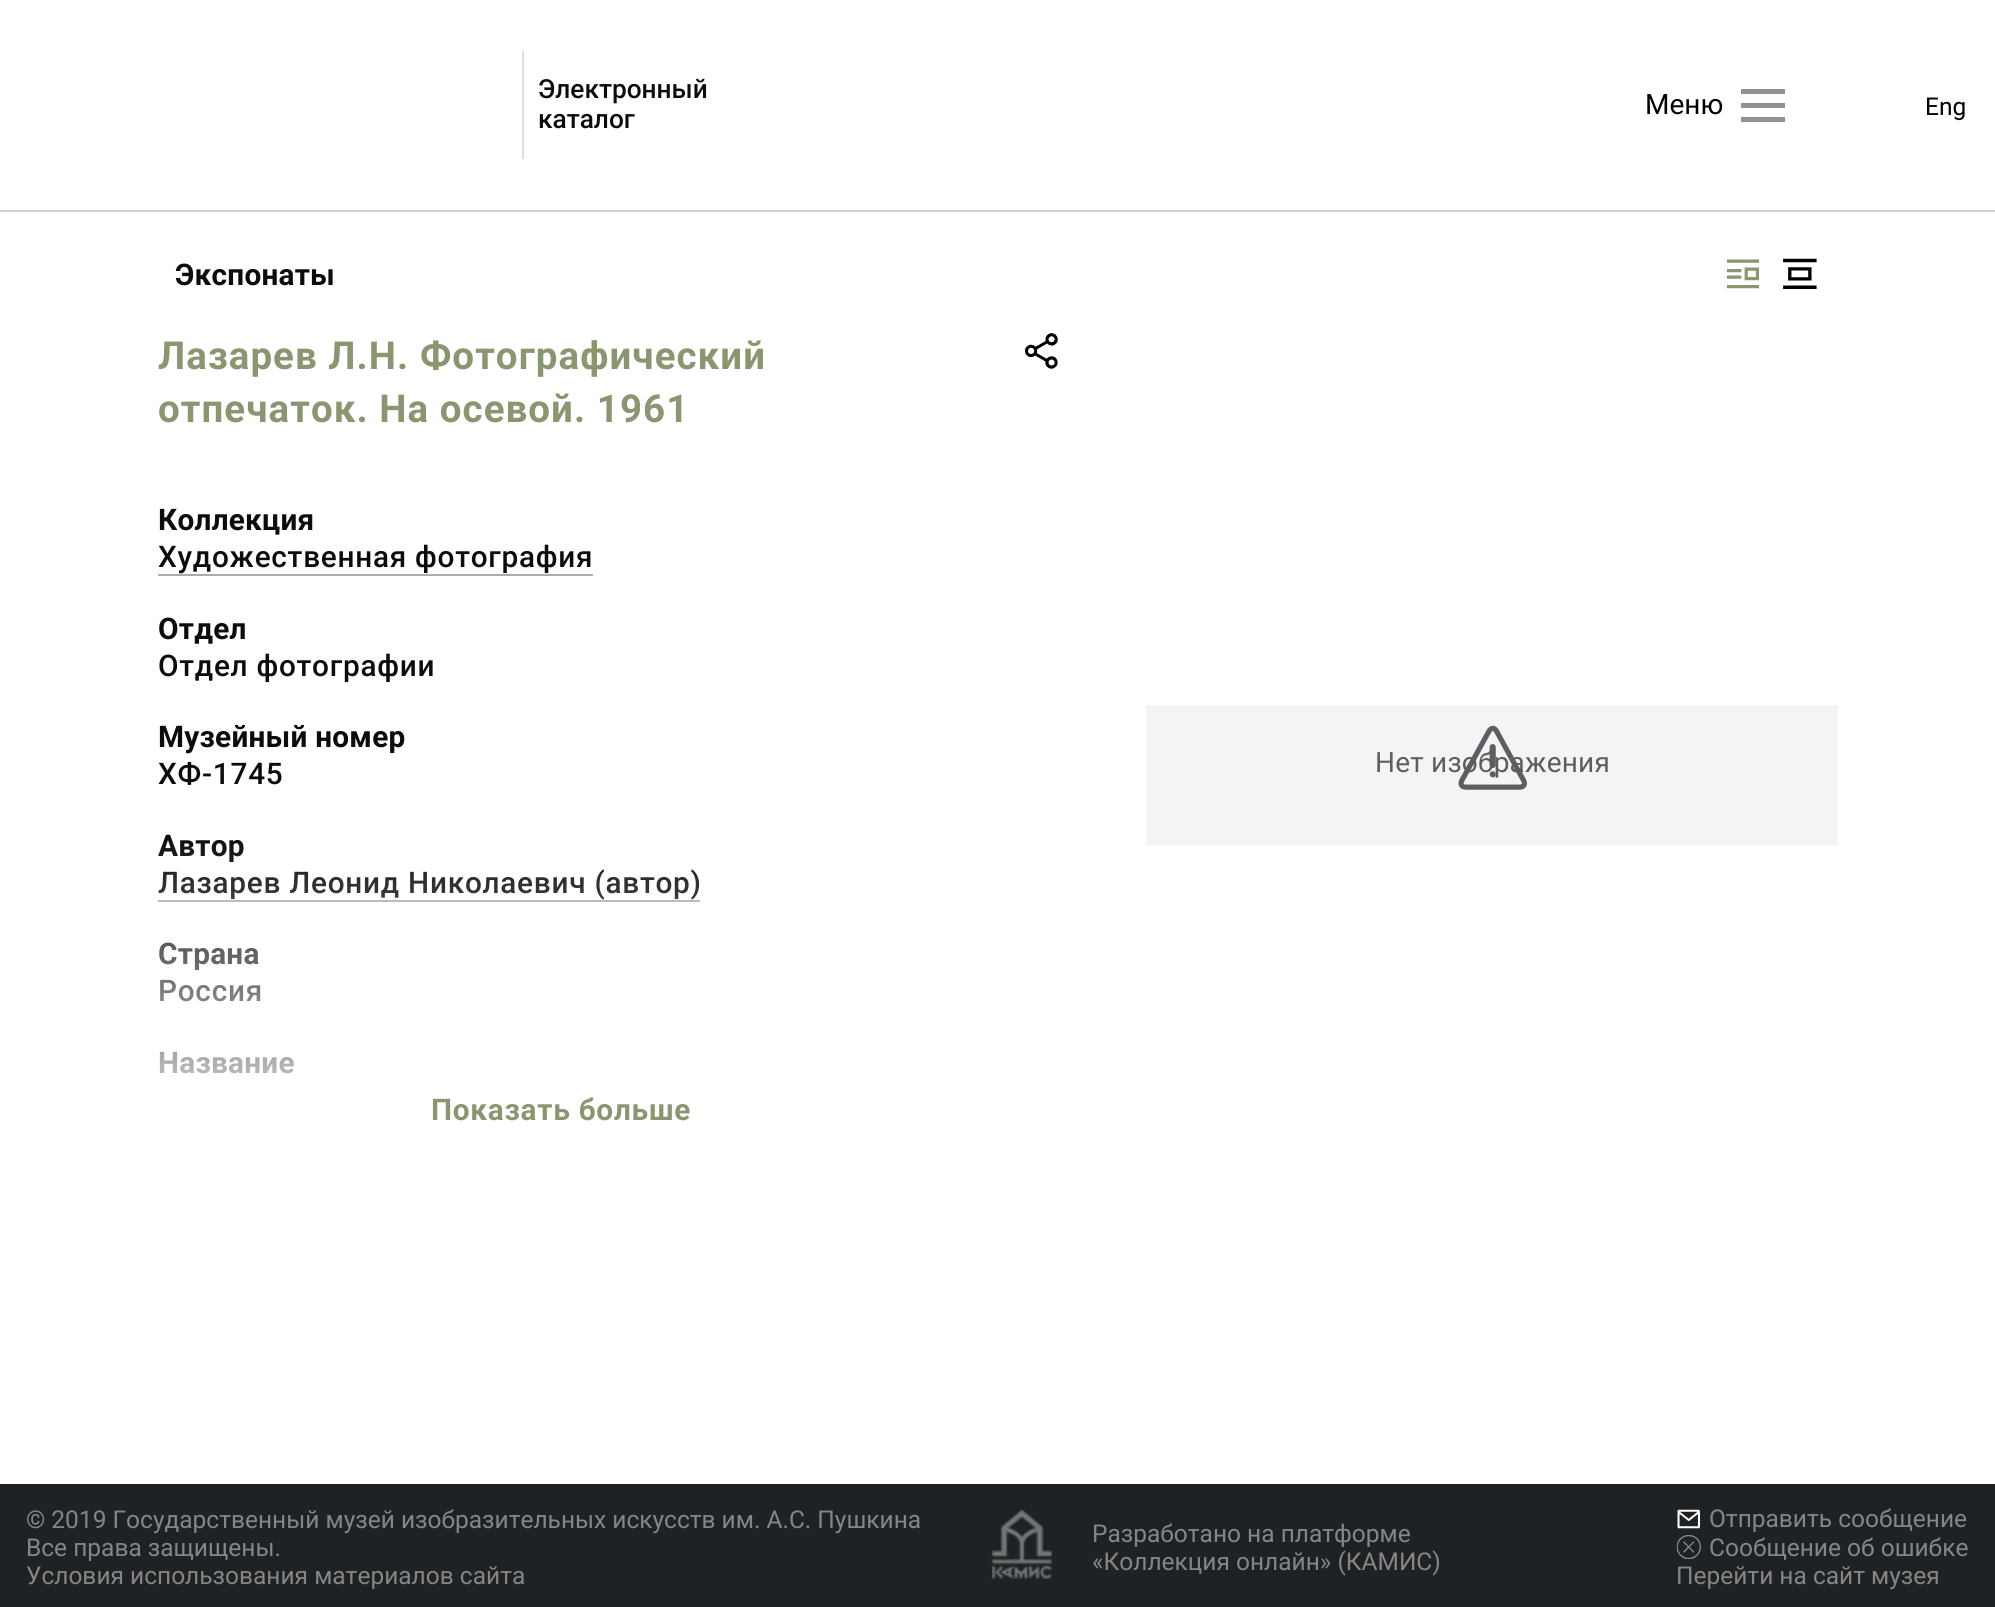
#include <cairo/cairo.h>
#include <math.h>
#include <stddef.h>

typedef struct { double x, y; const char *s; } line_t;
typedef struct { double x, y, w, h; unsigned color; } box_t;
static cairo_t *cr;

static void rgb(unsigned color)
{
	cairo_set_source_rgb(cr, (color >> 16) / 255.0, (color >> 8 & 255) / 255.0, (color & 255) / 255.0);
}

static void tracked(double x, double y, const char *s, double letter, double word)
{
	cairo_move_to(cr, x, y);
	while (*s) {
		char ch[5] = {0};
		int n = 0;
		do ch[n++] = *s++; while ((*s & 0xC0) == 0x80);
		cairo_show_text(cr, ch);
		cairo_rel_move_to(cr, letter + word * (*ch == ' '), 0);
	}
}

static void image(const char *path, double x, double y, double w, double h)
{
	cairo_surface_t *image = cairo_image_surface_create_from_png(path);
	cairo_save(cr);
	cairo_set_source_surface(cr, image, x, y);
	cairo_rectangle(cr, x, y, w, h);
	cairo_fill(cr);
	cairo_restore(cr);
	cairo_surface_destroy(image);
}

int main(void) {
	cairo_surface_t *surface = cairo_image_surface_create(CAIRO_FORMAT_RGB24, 1995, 1607);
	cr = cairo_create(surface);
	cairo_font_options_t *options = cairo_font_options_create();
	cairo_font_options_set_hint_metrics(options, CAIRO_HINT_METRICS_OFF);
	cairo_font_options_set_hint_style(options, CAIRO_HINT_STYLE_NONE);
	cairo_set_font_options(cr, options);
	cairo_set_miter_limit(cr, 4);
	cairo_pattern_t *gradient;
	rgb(0xffffff);
	cairo_paint(cr);
	{
		static const box_t items[] = {
			{0, 210, 1995, 2, 0xd3d3d3},
			{522, 51, 2, 108, 0xdedede},
			{1741, 89, 44, 5, 0x8e9195},
			{1741, 103, 44, 5, 0x8e9195},
			{1741, 117, 44, 5, 0x8e9195},
		};
		for (size_t i = 0; i < sizeof items / sizeof *items; i++) {
			rgb(items[i].color);
			cairo_rectangle(cr, items[i].x, items[i].y, items[i].w, items[i].h);
			cairo_fill(cr);
		}
	}
	image("img/1.png", 1726, 259, 34, 30);
	image("img/2.png", 1783, 258, 34, 31);
	image("img/3.png", 1025, 333, 33, 36);
	{
		static const box_t items[] = {
			{158, 574, 435, 2, 0xacacac},
			{158, 900, 542, 2, 0xacacac},
			{1146, 705, 692, 140, 0xf4f4f5},
			{0, 1484, 1995, 123, 0x1f2224},
		};
		for (size_t i = 0; i < sizeof items / sizeof *items; i++) {
			rgb(items[i].color);
			cairo_rectangle(cr, items[i].x, items[i].y, items[i].w, items[i].h);
			cairo_fill(cr);
		}
	}
	image("img/5.png", 991, 1509, 62, 70);
	image("img/6.png", 1677, 1509, 23, 20);
	image("img/7.png", 1676, 1535, 25, 24);
	cairo_select_font_face(cr, "Roboto Medium", CAIRO_FONT_SLANT_NORMAL, CAIRO_FONT_WEIGHT_NORMAL);
	cairo_set_font_size(cr, 26.25);
	rgb(0x0a0d10);
	cairo_move_to(cr, 538, 98);
	cairo_show_text(cr, "Электронный");
	cairo_move_to(cr, 538, 128);
	cairo_show_text(cr, "каталог");
	cairo_select_font_face(cr, "Roboto", CAIRO_FONT_SLANT_NORMAL, CAIRO_FONT_WEIGHT_NORMAL);
	cairo_set_font_size(cr, 28);
	rgb(0x000000);
	cairo_move_to(cr, 1645, 114);
	cairo_show_text(cr, "Меню");
	cairo_set_font_size(cr, 24.5);
	cairo_move_to(cr, 1925, 115);
	cairo_show_text(cr, "Eng");
	cairo_select_font_face(cr, "Roboto", CAIRO_FONT_SLANT_NORMAL, CAIRO_FONT_WEIGHT_BOLD);
	cairo_set_font_size(cr, 29.75);
	rgb(0x0a0d10);
	tracked(175, 285, "Экспонаты", 0.25, 0);
	cairo_set_font_size(cr, 38.5);
	rgb(0x899770);
	tracked(158, 369, "Лазарев Л.Н. Фотографический", 1.05, 0);
	tracked(158, 422, "отпечаток. На осевой. 1961", 1.05, 0);
	cairo_set_font_size(cr, 29.75);
	rgb(0x0a0d10);
	tracked(158, 530, "Коллекция", 0.25, 0);
	cairo_select_font_face(cr, "Roboto Medium", CAIRO_FONT_SLANT_NORMAL, CAIRO_FONT_WEIGHT_NORMAL);
	tracked(158, 567, "Художественная фотография", 0.75, 0);
	cairo_select_font_face(cr, "Roboto", CAIRO_FONT_SLANT_NORMAL, CAIRO_FONT_WEIGHT_BOLD);
	tracked(158, 639, "Отдел", 0.25, 0);
	cairo_select_font_face(cr, "Roboto Medium", CAIRO_FONT_SLANT_NORMAL, CAIRO_FONT_WEIGHT_NORMAL);
	tracked(158, 676, "Отдел фотографии", 0.75, 0);
	cairo_select_font_face(cr, "Roboto", CAIRO_FONT_SLANT_NORMAL, CAIRO_FONT_WEIGHT_BOLD);
	tracked(158, 747, "Музейный номер", 0.25, 0);
	cairo_select_font_face(cr, "Roboto Medium", CAIRO_FONT_SLANT_NORMAL, CAIRO_FONT_WEIGHT_NORMAL);
	tracked(158, 784, "ХФ-1745", 0.75, 0);
	cairo_select_font_face(cr, "Roboto", CAIRO_FONT_SLANT_NORMAL, CAIRO_FONT_WEIGHT_BOLD);
	tracked(158, 856, "Автор", 0.25, 0);
	cairo_select_font_face(cr, "Roboto Medium", CAIRO_FONT_SLANT_NORMAL, CAIRO_FONT_WEIGHT_NORMAL);
	tracked(158, 893, "Лазарев Леонид Николаевич (автор)", 0.75, 0);
	cairo_select_font_face(cr, "Roboto", CAIRO_FONT_SLANT_NORMAL, CAIRO_FONT_WEIGHT_BOLD);
	tracked(158, 964, "Страна", 0.25, 0);
	cairo_select_font_face(cr, "Roboto Medium", CAIRO_FONT_SLANT_NORMAL, CAIRO_FONT_WEIGHT_NORMAL);
	tracked(158, 1001, "Россия", 0.75, 0);
	cairo_select_font_face(cr, "Roboto", CAIRO_FONT_SLANT_NORMAL, CAIRO_FONT_WEIGHT_BOLD);
	tracked(158, 1073, "Название", 0.25, 0);
	gradient = cairo_pattern_create_linear(561, 838, 561, 1258);
	cairo_pattern_add_color_stop_rgba(gradient, 0, 1, 1, 1, 0.01);
	cairo_pattern_add_color_stop_rgba(gradient, 0.8, 1, 1, 1, 1);
	cairo_set_source(cr, gradient);
	cairo_pattern_destroy(gradient);
	cairo_rectangle(cr, 158, 842, 542, 232);
	cairo_fill(cr);
	rgb(0x899770);
	tracked(431, 1120, "Показать больше", 0.75, 0);
	cairo_select_font_face(cr, "Roboto", CAIRO_FONT_SLANT_NORMAL, CAIRO_FONT_WEIGHT_NORMAL);
	cairo_set_font_size(cr, 28);
	rgb(0x5c5f62);
	tracked(1375, 772, "Нет изображения", 0.2, 0);
	image("img/4.png", 1458, 725, 69, 65);
	cairo_set_font_size(cr, 24.5);
	rgb(0x858585);
	{
		static const line_t items[] = {
			{26, 1528, "© 2019 Государственный музей изобразительных искусств им. А.С. Пушкина"},
			{26, 1556, "Все права защищены."},
			{26, 1584, "Условия использования материалов сайта"},
			{1092, 1542, "Разработано на платформе"},
			{1092, 1570, "«Коллекция онлайн» (КАМИС)"},
			{1709, 1527, "Отправить сообщение"},
			{1709, 1556, "Сообщение об ошибке"},
			{1676, 1584, "Перейти на сайт музея"},
		};
		for (size_t i = 0; i < sizeof items / sizeof *items; i++) {
			cairo_move_to(cr, items[i].x, items[i].y);
			cairo_show_text(cr, items[i].s);
		}
	}
	cairo_surface_write_to_png(surface, "page.png");
	cairo_font_options_destroy(options);
	cairo_destroy(cr);
	cairo_surface_destroy(surface);
	return 0;
}
